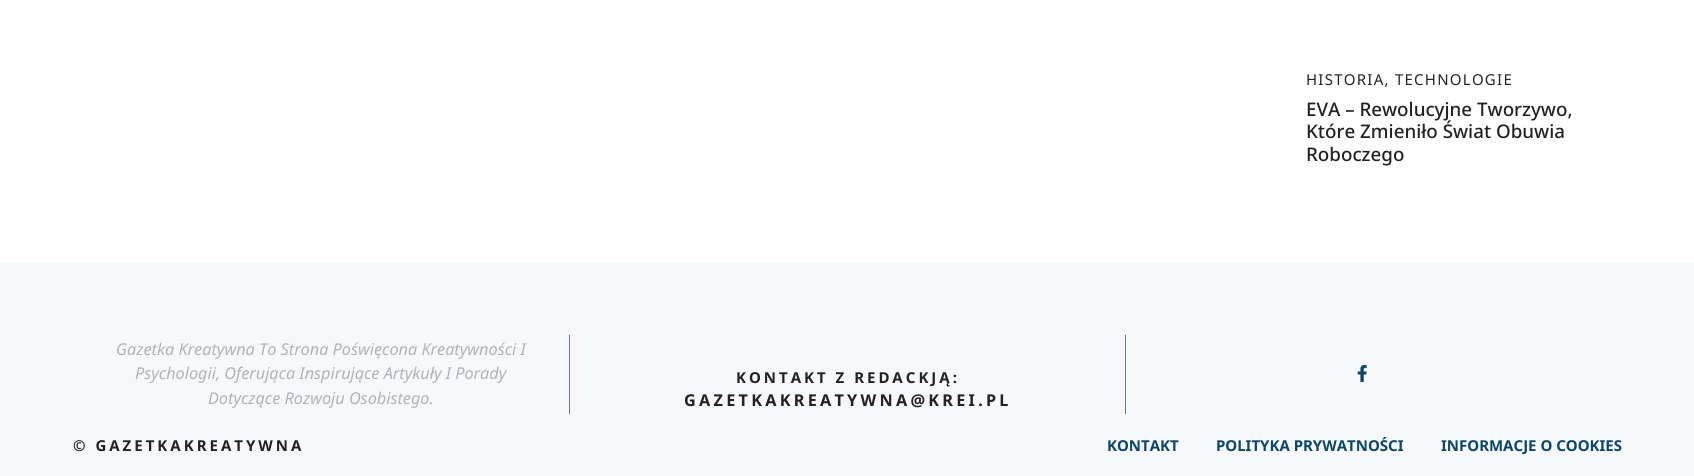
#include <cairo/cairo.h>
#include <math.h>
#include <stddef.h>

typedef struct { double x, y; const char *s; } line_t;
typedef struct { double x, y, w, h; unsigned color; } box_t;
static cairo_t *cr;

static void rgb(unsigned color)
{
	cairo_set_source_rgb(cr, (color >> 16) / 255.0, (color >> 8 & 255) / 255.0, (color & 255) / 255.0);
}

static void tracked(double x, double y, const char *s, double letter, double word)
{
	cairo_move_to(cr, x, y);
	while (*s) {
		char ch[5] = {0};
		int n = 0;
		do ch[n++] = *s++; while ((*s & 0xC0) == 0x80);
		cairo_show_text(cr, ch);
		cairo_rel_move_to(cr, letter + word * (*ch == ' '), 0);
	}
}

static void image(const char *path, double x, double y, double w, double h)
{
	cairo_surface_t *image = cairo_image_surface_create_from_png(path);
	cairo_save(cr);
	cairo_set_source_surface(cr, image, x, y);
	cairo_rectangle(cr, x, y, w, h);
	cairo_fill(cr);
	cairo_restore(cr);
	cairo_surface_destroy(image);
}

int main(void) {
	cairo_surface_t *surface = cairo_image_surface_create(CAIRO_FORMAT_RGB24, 1694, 476);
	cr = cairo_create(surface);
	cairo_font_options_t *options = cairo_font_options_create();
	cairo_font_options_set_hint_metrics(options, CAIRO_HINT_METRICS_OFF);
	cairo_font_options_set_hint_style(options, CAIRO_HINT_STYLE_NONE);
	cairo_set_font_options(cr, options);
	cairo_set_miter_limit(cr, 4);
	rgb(0xffffff);
	cairo_paint(cr);
	{
		static const box_t items[] = {
			{0, 263, 1694, 213, 0xf7f8f9},
			{1125, 335, 1, 79, 0x5c7a99},
			{569, 335, 1, 79, 0x5c7a99},
		};
		for (size_t i = 0; i < sizeof items / sizeof *items; i++) {
			rgb(items[i].color);
			cairo_rectangle(cr, items[i].x, items[i].y, items[i].w, items[i].h);
			cairo_fill(cr);
		}
	}
	image("img/1.png", 1357, 365, 10, 17);
	cairo_select_font_face(cr, "Noto Sans", CAIRO_FONT_SLANT_NORMAL, CAIRO_FONT_WEIGHT_NORMAL);
	cairo_set_font_size(cr, 15);
	rgb(0x222222);
	tracked(1306, 85, "HISTORIA, TECHNOLOGIE", 1.25, 0);
	cairo_select_font_face(cr, "Noto Sans Medium", CAIRO_FONT_SLANT_NORMAL, CAIRO_FONT_WEIGHT_NORMAL);
	cairo_set_font_size(cr, 18.75);
	{
		static const line_t items[] = {
			{1306, 116, "EVA – Rewolucyjne Tworzywo,"},
			{1306, 138, "Które Zmieniło Świat Obuwia"},
			{1306, 161, "Roboczego"},
		};
		for (size_t i = 0; i < sizeof items / sizeof *items; i++) {
			cairo_move_to(cr, items[i].x, items[i].y);
			cairo_show_text(cr, items[i].s);
		}
	}
	cairo_select_font_face(cr, "Noto Sans", CAIRO_FONT_SLANT_ITALIC, CAIRO_FONT_WEIGHT_NORMAL);
	cairo_set_font_size(cr, 16.25);
	rgb(0xb2b2be);
	{
		static const line_t items[] = {
			{116, 355, "Gazetka Kreatywna To Strona Poświęcona Kreatywności I"},
			{135, 379, "Psychologii, Oferująca Inspirujące Artykuły I Porady"},
			{208, 404, "Dotyczące Rozwoju Osobistego."},
		};
		for (size_t i = 0; i < sizeof items / sizeof *items; i++) {
			cairo_move_to(cr, items[i].x, items[i].y);
			cairo_show_text(cr, items[i].s);
		}
	}
	cairo_select_font_face(cr, "Noto Sans", CAIRO_FONT_SLANT_NORMAL, CAIRO_FONT_WEIGHT_BOLD);
	cairo_set_font_size(cr, 15);
	rgb(0x222222);
	tracked(736, 383, "KONTAKT Z REDACKJĄ:", 3, 0);
	cairo_set_font_size(cr, 16.25);
	tracked(684, 406, "GAZETKAKREATYWNA@KREI.PL", 3.25, 0);
	cairo_set_font_size(cr, 15);
	tracked(73, 451, "© GAZETKAKREATYWNA", 3, 0);
	rgb(0x0c4767);
	{
		static const line_t items[] = {
			{1107, 451, "KONTAKT"},
			{1216, 451, "POLITYKA PRYWATNOŚCI"},
			{1441, 451, "INFORMACJE O COOKIES"},
		};
		for (size_t i = 0; i < sizeof items / sizeof *items; i++) {
			cairo_move_to(cr, items[i].x, items[i].y);
			cairo_show_text(cr, items[i].s);
		}
	}
	cairo_surface_write_to_png(surface, "page.png");
	cairo_font_options_destroy(options);
	cairo_destroy(cr);
	cairo_surface_destroy(surface);
	return 0;
}
